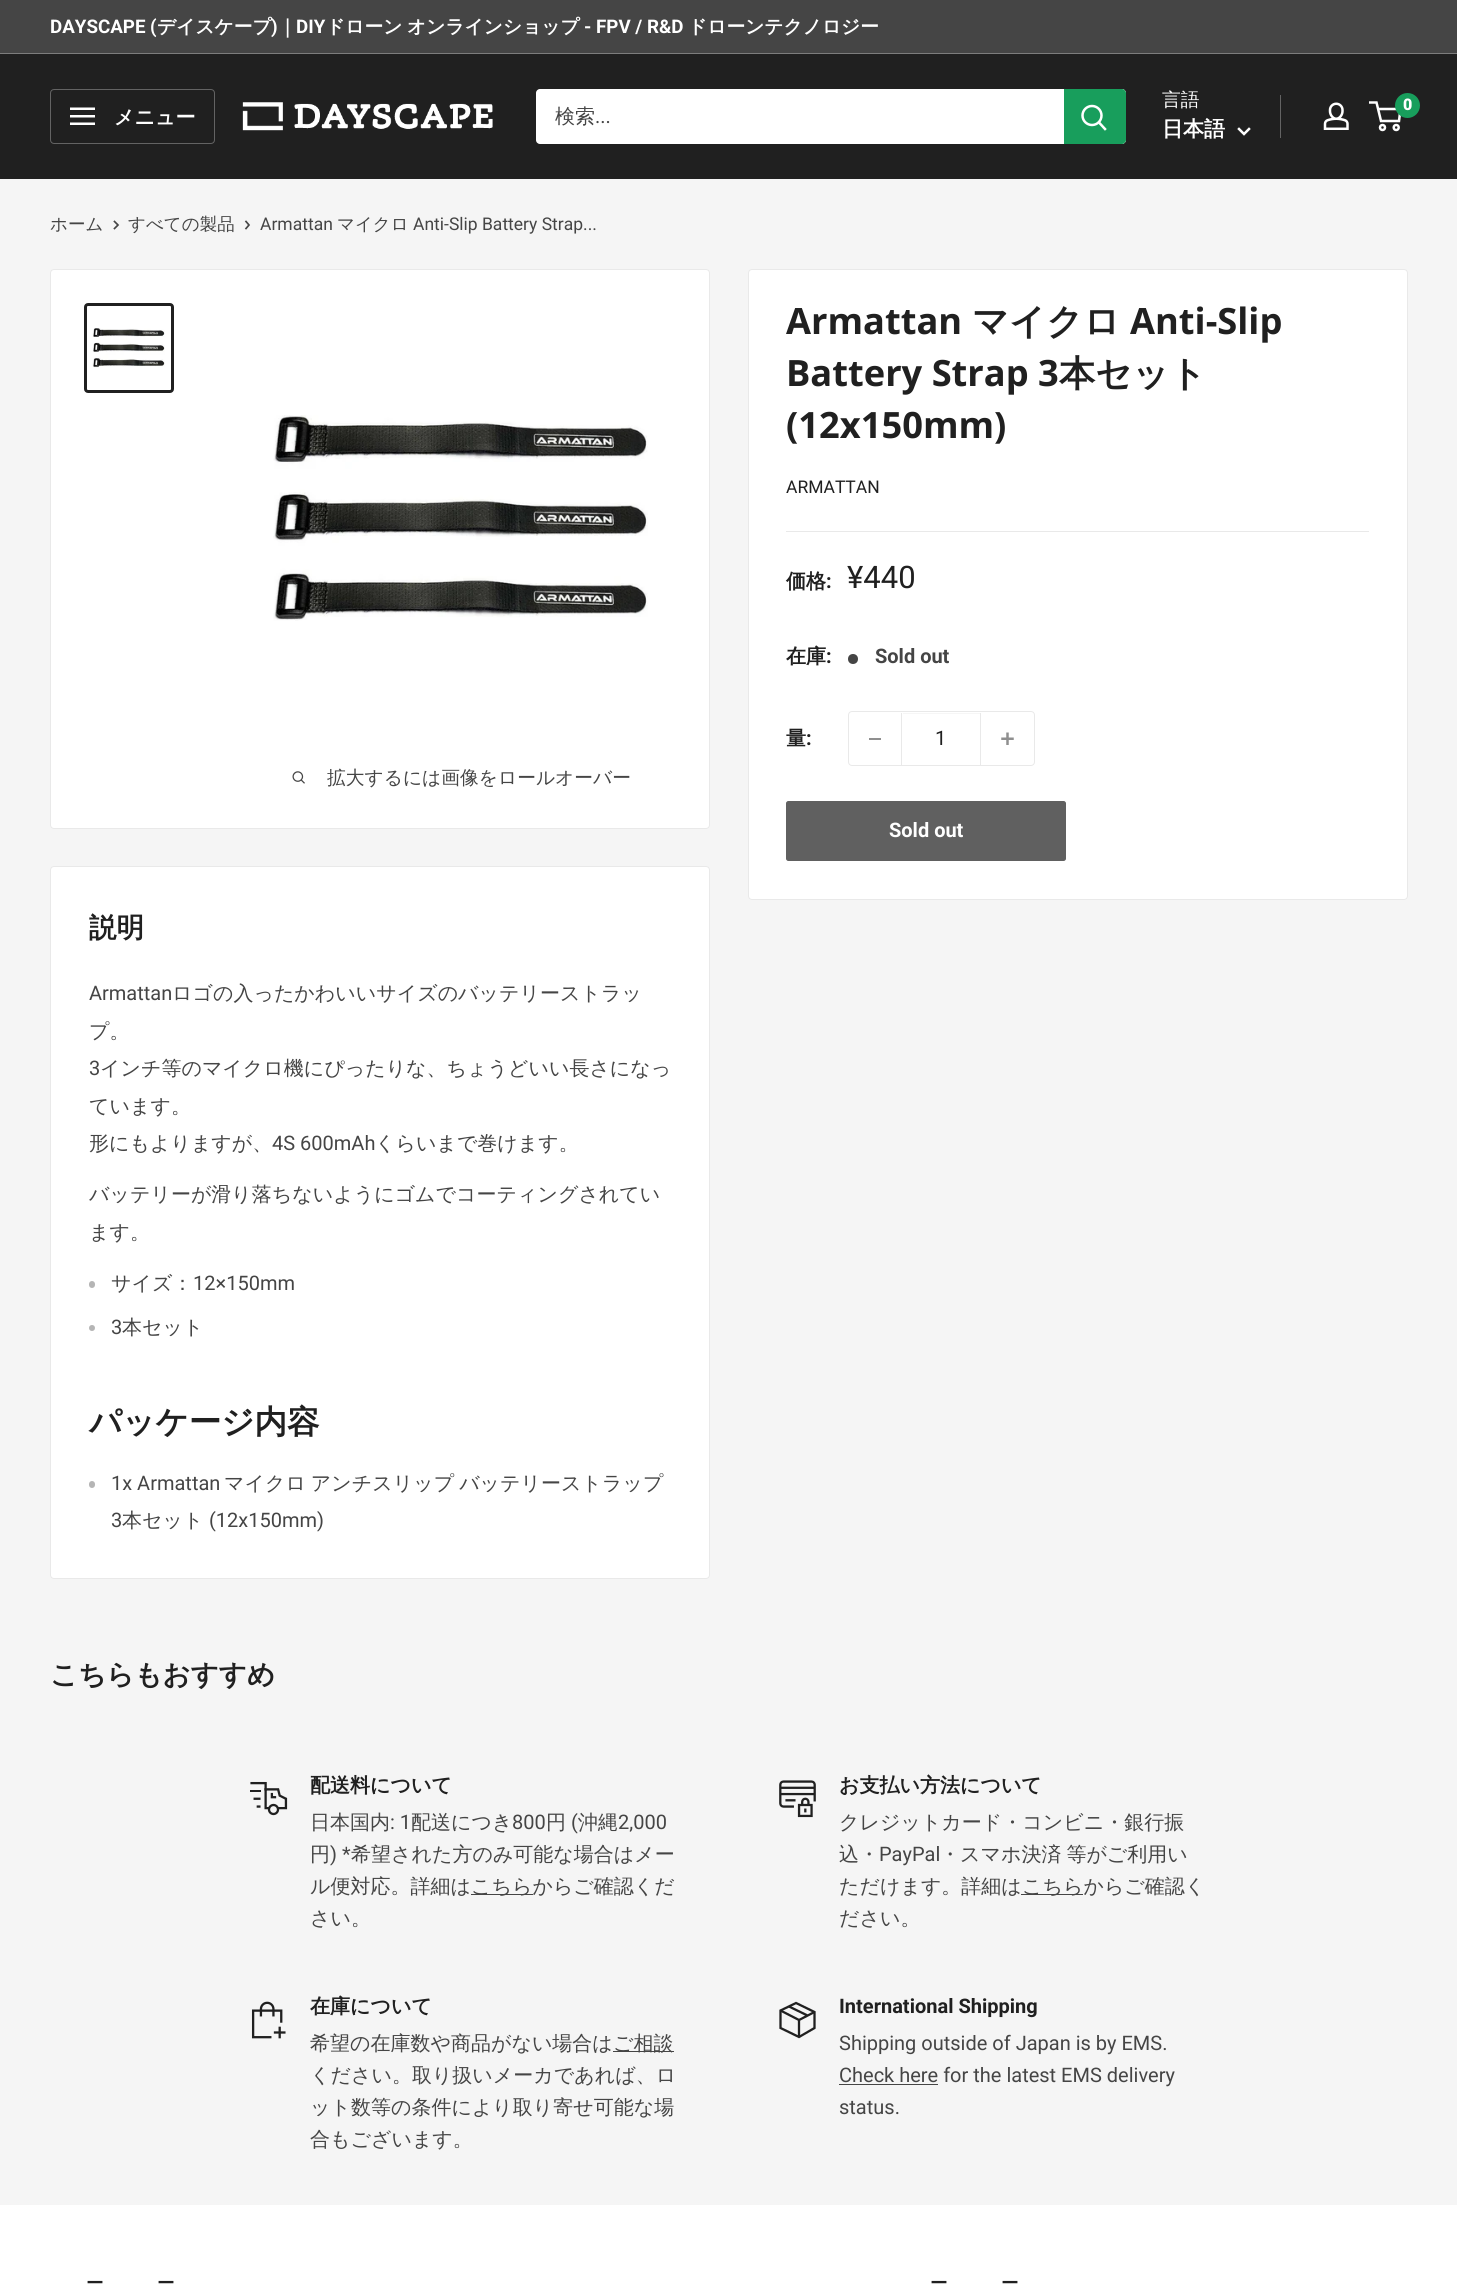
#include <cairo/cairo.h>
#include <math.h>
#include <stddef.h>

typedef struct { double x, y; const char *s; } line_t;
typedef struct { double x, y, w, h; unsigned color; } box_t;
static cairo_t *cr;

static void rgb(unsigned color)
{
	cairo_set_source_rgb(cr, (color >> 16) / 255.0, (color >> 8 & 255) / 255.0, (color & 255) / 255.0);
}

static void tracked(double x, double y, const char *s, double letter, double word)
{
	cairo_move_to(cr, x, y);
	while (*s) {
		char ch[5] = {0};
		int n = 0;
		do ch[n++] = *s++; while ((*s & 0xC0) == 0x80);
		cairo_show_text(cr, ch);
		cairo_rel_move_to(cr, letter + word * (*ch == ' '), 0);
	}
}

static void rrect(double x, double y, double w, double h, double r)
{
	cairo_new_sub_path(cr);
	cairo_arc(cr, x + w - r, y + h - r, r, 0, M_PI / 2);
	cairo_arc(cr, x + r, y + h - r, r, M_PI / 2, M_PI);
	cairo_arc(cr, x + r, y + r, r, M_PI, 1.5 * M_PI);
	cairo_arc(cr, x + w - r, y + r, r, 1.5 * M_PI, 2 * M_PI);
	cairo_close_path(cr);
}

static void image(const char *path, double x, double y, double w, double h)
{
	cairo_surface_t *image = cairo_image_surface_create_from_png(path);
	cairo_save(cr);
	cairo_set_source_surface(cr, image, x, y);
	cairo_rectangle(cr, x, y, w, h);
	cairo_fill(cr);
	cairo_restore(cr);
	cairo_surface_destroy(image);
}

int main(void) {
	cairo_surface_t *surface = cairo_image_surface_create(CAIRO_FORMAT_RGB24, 1457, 2284);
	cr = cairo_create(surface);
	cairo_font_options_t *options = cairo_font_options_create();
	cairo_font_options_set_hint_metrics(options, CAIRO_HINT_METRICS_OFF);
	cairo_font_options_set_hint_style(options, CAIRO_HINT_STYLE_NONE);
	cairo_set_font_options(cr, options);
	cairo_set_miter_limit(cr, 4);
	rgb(0xf5f5f5);
	cairo_paint(cr);
	{
		static const box_t items[] = {
			{0, 0, 1457, 53, 0x454545},
			{0, 53, 1457, 1, 0x7d7d7d},
			{0, 54, 1457, 125, 0x202020},
		};
		for (size_t i = 0; i < sizeof items / sizeof *items; i++) {
			rgb(items[i].color);
			cairo_rectangle(cr, items[i].x, items[i].y, items[i].w, items[i].h);
			cairo_fill(cr);
		}
	}
	rrect(50.5, 89.5, 164, 54, 3.5);
	rgb(0x636363);
	cairo_set_line_width(cr, 1);
	cairo_stroke(cr);
	image("img/1.png", 70, 107, 25, 18);
	image("img/2.png", 242, 102, 251, 29);
	rgb(0xffffff);
	rrect(536, 89, 590, 55, 4);
	cairo_fill(cr);
	rgb(0x189e5c);
	cairo_new_path(cr);
	cairo_move_to(cr, 1064, 89);
	cairo_line_to(cr, 1122, 89);
	cairo_curve_to(cr, 1124, 89, 1126, 91, 1126, 93);
	cairo_line_to(cr, 1126, 140);
	cairo_curve_to(cr, 1126, 142, 1124, 144, 1122, 144);
	cairo_line_to(cr, 1064, 144);
	cairo_close_path(cr);
	cairo_fill(cr);
	cairo_new_path(cr);
	cairo_move_to(cr, 1105, 129);
	cairo_line_to(cr, 1099, 122.5);
	rgb(0xffffff);
	cairo_set_line_width(cr, 2.5);
	cairo_set_line_cap(cr, CAIRO_LINE_CAP_SQUARE);
	cairo_stroke(cr);
	cairo_arc(cr, 1092, 115.5, 9.5, 0, 2 * M_PI);
	cairo_set_line_cap(cr, CAIRO_LINE_CAP_BUTT);
	cairo_stroke(cr);
	cairo_new_path(cr);
	cairo_move_to(cr, 1249, 129);
	cairo_line_to(cr, 1244, 134);
	cairo_line_to(cr, 1239, 129);
	cairo_set_line_cap(cr, CAIRO_LINE_CAP_SQUARE);
	cairo_stroke(cr);
	rgb(0x636363);
	cairo_rectangle(cr, 1280, 95, 1, 43);
	cairo_fill(cr);
	image("img/3.png", 1323, 102, 26, 28);
	cairo_arc(cr, 1382.5, 127.5, 2.5, 0, 2 * M_PI);
	rgb(0xffffff);
	cairo_set_line_cap(cr, CAIRO_LINE_CAP_BUTT);
	cairo_stroke(cr);
	cairo_arc(cr, 1396.2, 127.5, 2.5, 0, 2 * M_PI);
	cairo_stroke(cr);
	cairo_new_path(cr);
	cairo_move_to(cr, 1378, 109);
	cairo_line_to(cr, 1400.5, 109);
	cairo_line_to(cr, 1399, 121);
	cairo_line_to(cr, 1381, 121);
	cairo_line_to(cr, 1376.5, 102.5);
	cairo_line_to(cr, 1369, 102.5);
	cairo_stroke(cr);
	rgb(0x189e5c);
	cairo_arc(cr, 1407.5, 105.5, 12.5, 0, 2 * M_PI);
	cairo_fill(cr);
	cairo_new_path(cr);
	cairo_move_to(cr, 114.5, 221.5);
	cairo_line_to(cr, 118, 225);
	cairo_line_to(cr, 114.5, 228.5);
	rgb(0x454545);
	cairo_set_line_width(cr, 1.7);
	cairo_set_line_cap(cr, CAIRO_LINE_CAP_SQUARE);
	cairo_stroke(cr);
	cairo_new_path(cr);
	cairo_move_to(cr, 246, 221.5);
	cairo_line_to(cr, 249, 225);
	cairo_line_to(cr, 246, 228.5);
	cairo_stroke(cr);
	rgb(0xffffff);
	rrect(50.5, 269.5, 659, 559, 3.5);
	cairo_fill_preserve(cr);
	rgb(0xe9e9e9);
	cairo_set_line_width(cr, 1);
	cairo_set_line_cap(cr, CAIRO_LINE_CAP_BUTT);
	cairo_stroke(cr);
	rrect(85.5, 304.5, 87, 87, 2.5);
	rgb(0x202020);
	cairo_set_line_width(cr, 3);
	cairo_stroke(cr);
	image("img/4.png", 92, 328, 73, 40);
	image("img/5.png", 273, 415, 375, 206);
	image("img/6.png", 292, 771, 13, 13);
	rgb(0xffffff);
	rrect(748.5, 269.5, 659, 630, 3.5);
	cairo_fill_preserve(cr);
	rgb(0xe9e9e9);
	cairo_set_line_width(cr, 1);
	cairo_stroke(cr);
	cairo_rectangle(cr, 786, 531, 583, 1);
	cairo_fill(cr);
	rgb(0x454545);
	cairo_arc(cr, 853, 659, 5, 0, 2 * M_PI);
	cairo_fill(cr);
	rrect(848.5, 711.5, 186, 54, 3.5);
	rgb(0xe9e9e9);
	cairo_stroke(cr);
	{
		static const box_t items[] = {
			{869, 738, 12, 2, 0x8f8f8f},
			{903, 713, 77, 1, 0xf6f6f6},
			{980, 713, 1, 52, 0xe9e9e9},
			{901, 713, 1, 52, 0xe9e9e9},
		};
		for (size_t i = 0; i < sizeof items / sizeof *items; i++) {
			rgb(items[i].color);
			cairo_rectangle(cr, items[i].x, items[i].y, items[i].w, items[i].h);
			cairo_fill(cr);
		}
	}
	image("img/7.png", 1001, 732, 13, 13);
	rgb(0x606060);
	rrect(786.5, 801.5, 279, 59, 2);
	cairo_fill_preserve(cr);
	cairo_stroke(cr);
	rgb(0xffffff);
	rrect(50.5, 866.5, 659, 712, 3.5);
	cairo_fill_preserve(cr);
	rgb(0xe9e9e9);
	cairo_stroke(cr);
	rgb(0xb5b5b5);
	rrect(89, 1281, 6, 7, 3);
	cairo_fill(cr);
	cairo_arc(cr, 92, 1328, 3, 0, 2 * M_PI);
	cairo_fill(cr);
	rrect(89, 1481, 6, 7, 3);
	cairo_fill(cr);
	image("img/8.png", 250, 1781, 38, 35);
	rgb(0x454545);
	cairo_rectangle(cr, 471, 1894, 62, 1);
	cairo_fill(cr);
	image("img/9.png", 779, 1780, 37, 38);
	cairo_rectangle(cr, 1021, 1894, 62, 1);
	cairo_fill(cr);
	image("img/10.png", 251, 2001, 35, 38);
	cairo_rectangle(cr, 613, 2051, 61, 1);
	cairo_fill(cr);
	cairo_new_path(cr);
	cairo_move_to(cr, 789, 2006.5);
	cairo_line_to(cr, 807.5, 2015.5);
	cairo_move_to(cr, 814.5, 2012);
	cairo_line_to(cr, 799, 2020);
	cairo_line_to(cr, 780.5, 2010.5);
	cairo_move_to(cr, 799, 2020);
	cairo_line_to(cr, 799, 2037);
	rgb(0x202020);
	cairo_set_line_width(cr, 2.3);
	cairo_stroke(cr);
	cairo_new_path(cr);
	cairo_move_to(cr, 814.5, 2012);
	cairo_line_to(cr, 814.5, 2028);
	cairo_line_to(cr, 799, 2037);
	cairo_line_to(cr, 780.5, 2028);
	cairo_line_to(cr, 780.5, 2010.5);
	cairo_line_to(cr, 796, 2003);
	cairo_close_path(cr);
	cairo_set_line_cap(cr, CAIRO_LINE_CAP_SQUARE);
	cairo_stroke(cr);
	rgb(0x454545);
	cairo_rectangle(cr, 839, 2084, 99, 1);
	cairo_fill(cr);
	rgb(0xffffff);
	cairo_rectangle(cr, 0, 2205, 1457, 79);
	cairo_fill(cr);
	cairo_select_font_face(cr, "Roboto", CAIRO_FONT_SLANT_NORMAL, CAIRO_FONT_WEIGHT_BOLD);
	cairo_set_font_size(cr, 18.75);
	cairo_move_to(cr, 50, 33);
	cairo_show_text(cr, "DAYSCAPE (");
	cairo_select_font_face(cr, "WenQuanYi Zen Hei", CAIRO_FONT_SLANT_NORMAL, CAIRO_FONT_WEIGHT_BOLD);
	cairo_move_to(cr, 157, 33);
	cairo_show_text(cr, "デイスケープ");
	cairo_select_font_face(cr, "Roboto", CAIRO_FONT_SLANT_NORMAL, CAIRO_FONT_WEIGHT_BOLD);
	cairo_move_to(cr, 271, 33);
	cairo_show_text(cr, ")");
	cairo_select_font_face(cr, "WenQuanYi Zen Hei", CAIRO_FONT_SLANT_NORMAL, CAIRO_FONT_WEIGHT_BOLD);
	cairo_move_to(cr, 278, 33);
	cairo_show_text(cr, "｜");
	cairo_select_font_face(cr, "Roboto", CAIRO_FONT_SLANT_NORMAL, CAIRO_FONT_WEIGHT_BOLD);
	cairo_move_to(cr, 296, 33);
	cairo_show_text(cr, "DIY");
	cairo_select_font_face(cr, "WenQuanYi Zen Hei", CAIRO_FONT_SLANT_NORMAL, CAIRO_FONT_WEIGHT_BOLD);
	cairo_move_to(cr, 326, 33);
	cairo_show_text(cr, "ドローン");
	cairo_move_to(cr, 407, 33);
	cairo_show_text(cr, "オンラインショップ");
	cairo_select_font_face(cr, "Roboto", CAIRO_FONT_SLANT_NORMAL, CAIRO_FONT_WEIGHT_BOLD);
	cairo_move_to(cr, 584, 33);
	cairo_show_text(cr, "- FPV / R&D");
	cairo_select_font_face(cr, "WenQuanYi Zen Hei", CAIRO_FONT_SLANT_NORMAL, CAIRO_FONT_WEIGHT_BOLD);
	cairo_move_to(cr, 688, 33);
	cairo_show_text(cr, "ドローンテクノロジー");
	cairo_set_font_size(cr, 20);
	cairo_move_to(cr, 114, 124);
	cairo_show_text(cr, "メニュー");
	cairo_select_font_face(cr, "WenQuanYi Zen Hei Medium", CAIRO_FONT_SLANT_NORMAL, CAIRO_FONT_WEIGHT_NORMAL);
	rgb(0x454545);
	cairo_move_to(cr, 555, 123);
	cairo_show_text(cr, "検索");
	cairo_select_font_face(cr, "Roboto", CAIRO_FONT_SLANT_NORMAL, CAIRO_FONT_WEIGHT_NORMAL);
	cairo_move_to(cr, 595, 123);
	cairo_show_text(cr, "...");
	cairo_select_font_face(cr, "WenQuanYi Zen Hei Medium", CAIRO_FONT_SLANT_NORMAL, CAIRO_FONT_WEIGHT_NORMAL);
	cairo_set_font_size(cr, 18.75);
	rgb(0xffffff);
	cairo_move_to(cr, 1162, 106);
	cairo_show_text(cr, "言語");
	cairo_select_font_face(cr, "WenQuanYi Zen Hei", CAIRO_FONT_SLANT_NORMAL, CAIRO_FONT_WEIGHT_BOLD);
	cairo_set_font_size(cr, 21);
	cairo_move_to(cr, 1162, 136);
	cairo_show_text(cr, "日本語");
	cairo_select_font_face(cr, "Roboto Black", CAIRO_FONT_SLANT_NORMAL, CAIRO_FONT_WEIGHT_NORMAL);
	cairo_set_font_size(cr, 16);
	cairo_move_to(cr, 1403, 110);
	cairo_show_text(cr, "0");
	cairo_select_font_face(cr, "WenQuanYi Zen Hei Medium", CAIRO_FONT_SLANT_NORMAL, CAIRO_FONT_WEIGHT_NORMAL);
	cairo_set_font_size(cr, 17.5);
	rgb(0x454545);
	cairo_move_to(cr, 50, 230);
	cairo_show_text(cr, "ホーム");
	cairo_move_to(cr, 128, 230);
	cairo_show_text(cr, "すべての製品");
	cairo_select_font_face(cr, "Roboto", CAIRO_FONT_SLANT_NORMAL, CAIRO_FONT_WEIGHT_NORMAL);
	cairo_move_to(cr, 260, 230);
	cairo_show_text(cr, "Armattan");
	cairo_select_font_face(cr, "WenQuanYi Zen Hei Medium", CAIRO_FONT_SLANT_NORMAL, CAIRO_FONT_WEIGHT_NORMAL);
	cairo_move_to(cr, 337, 230);
	cairo_show_text(cr, "マイクロ");
	cairo_select_font_face(cr, "Roboto", CAIRO_FONT_SLANT_NORMAL, CAIRO_FONT_WEIGHT_NORMAL);
	cairo_move_to(cr, 413, 230);
	cairo_show_text(cr, "Anti-Slip Battery Strap...");
	cairo_select_font_face(cr, "WenQuanYi Zen Hei Medium", CAIRO_FONT_SLANT_NORMAL, CAIRO_FONT_WEIGHT_NORMAL);
	cairo_set_font_size(cr, 18.75);
	cairo_move_to(cr, 327, 784);
	cairo_show_text(cr, "拡大するには画像をロールオーバー");
	cairo_select_font_face(cr, "Open Sans", CAIRO_FONT_SLANT_NORMAL, CAIRO_FONT_WEIGHT_BOLD);
	cairo_set_font_size(cr, 36.25);
	rgb(0x202020);
	cairo_move_to(cr, 786, 334);
	cairo_show_text(cr, "Armattan");
	cairo_select_font_face(cr, "WenQuanYi Zen Hei", CAIRO_FONT_SLANT_NORMAL, CAIRO_FONT_WEIGHT_BOLD);
	cairo_move_to(cr, 972, 334);
	cairo_show_text(cr, "マイクロ");
	cairo_select_font_face(cr, "Open Sans", CAIRO_FONT_SLANT_NORMAL, CAIRO_FONT_WEIGHT_BOLD);
	cairo_move_to(cr, 1130, 334);
	cairo_show_text(cr, "Anti-Slip");
	cairo_move_to(cr, 786, 386);
	cairo_show_text(cr, "Battery Strap 3");
	cairo_select_font_face(cr, "WenQuanYi Zen Hei", CAIRO_FONT_SLANT_NORMAL, CAIRO_FONT_WEIGHT_BOLD);
	cairo_move_to(cr, 1059, 386);
	cairo_show_text(cr, "本セット");
	cairo_select_font_face(cr, "Open Sans", CAIRO_FONT_SLANT_NORMAL, CAIRO_FONT_WEIGHT_BOLD);
	cairo_move_to(cr, 786, 438);
	cairo_show_text(cr, "(12x150mm)");
	cairo_select_font_face(cr, "Roboto", CAIRO_FONT_SLANT_NORMAL, CAIRO_FONT_WEIGHT_NORMAL);
	cairo_set_font_size(cr, 17.5);
	cairo_move_to(cr, 786, 493);
	cairo_show_text(cr, "ARMATTAN");
	cairo_select_font_face(cr, "WenQuanYi Zen Hei", CAIRO_FONT_SLANT_NORMAL, CAIRO_FONT_WEIGHT_BOLD);
	cairo_set_font_size(cr, 20);
	cairo_move_to(cr, 786, 588);
	cairo_show_text(cr, "価格");
	cairo_select_font_face(cr, "Roboto", CAIRO_FONT_SLANT_NORMAL, CAIRO_FONT_WEIGHT_BOLD);
	cairo_move_to(cr, 826, 588);
	cairo_show_text(cr, ":");
	cairo_select_font_face(cr, "Roboto", CAIRO_FONT_SLANT_NORMAL, CAIRO_FONT_WEIGHT_NORMAL);
	cairo_set_font_size(cr, 31);
	cairo_move_to(cr, 847, 588);
	cairo_show_text(cr, "¥440");
	cairo_select_font_face(cr, "WenQuanYi Zen Hei", CAIRO_FONT_SLANT_NORMAL, CAIRO_FONT_WEIGHT_BOLD);
	cairo_set_font_size(cr, 20);
	cairo_move_to(cr, 786, 663);
	cairo_show_text(cr, "在庫");
	cairo_select_font_face(cr, "Roboto", CAIRO_FONT_SLANT_NORMAL, CAIRO_FONT_WEIGHT_BOLD);
	cairo_move_to(cr, 826, 663);
	cairo_show_text(cr, ":");
	rgb(0x454545);
	cairo_move_to(cr, 875, 663);
	cairo_show_text(cr, "Sold out");
	cairo_select_font_face(cr, "WenQuanYi Zen Hei", CAIRO_FONT_SLANT_NORMAL, CAIRO_FONT_WEIGHT_BOLD);
	rgb(0x202020);
	cairo_move_to(cr, 786, 745);
	cairo_show_text(cr, "量");
	cairo_select_font_face(cr, "Roboto", CAIRO_FONT_SLANT_NORMAL, CAIRO_FONT_WEIGHT_BOLD);
	cairo_move_to(cr, 806, 745);
	cairo_show_text(cr, ":");
	cairo_select_font_face(cr, "Roboto", CAIRO_FONT_SLANT_NORMAL, CAIRO_FONT_WEIGHT_NORMAL);
	cairo_move_to(cr, 935, 745);
	cairo_show_text(cr, "1");
	cairo_select_font_face(cr, "Roboto", CAIRO_FONT_SLANT_NORMAL, CAIRO_FONT_WEIGHT_BOLD);
	rgb(0xffffff);
	cairo_move_to(cr, 889, 837);
	cairo_show_text(cr, "Sold out");
	cairo_select_font_face(cr, "WenQuanYi Zen Hei", CAIRO_FONT_SLANT_NORMAL, CAIRO_FONT_WEIGHT_BOLD);
	cairo_set_font_size(cr, 27.5);
	rgb(0x202020);
	cairo_move_to(cr, 89, 937);
	cairo_show_text(cr, "説明");
	cairo_select_font_face(cr, "Roboto", CAIRO_FONT_SLANT_NORMAL, CAIRO_FONT_WEIGHT_NORMAL);
	cairo_set_font_size(cr, 20);
	rgb(0x454545);
	cairo_move_to(cr, 89, 1000);
	cairo_show_text(cr, "Armattan");
	cairo_select_font_face(cr, "WenQuanYi Zen Hei Medium", CAIRO_FONT_SLANT_NORMAL, CAIRO_FONT_WEIGHT_NORMAL);
	cairo_move_to(cr, 172, 1000);
	cairo_show_text(cr, "ロゴの入ったかわいいサイズのバッテリーストラッ");
	cairo_move_to(cr, 89, 1038);
	cairo_show_text(cr, "プ。");
	cairo_select_font_face(cr, "Roboto", CAIRO_FONT_SLANT_NORMAL, CAIRO_FONT_WEIGHT_NORMAL);
	cairo_move_to(cr, 89, 1075);
	cairo_show_text(cr, "3");
	cairo_select_font_face(cr, "WenQuanYi Zen Hei Medium", CAIRO_FONT_SLANT_NORMAL, CAIRO_FONT_WEIGHT_NORMAL);
	{
		static const line_t items[] = {
			{100, 1075, "インチ等のマイクロ機にぴったりな、ちょうどいい長さになっ"},
			{89, 1113, "ています。"},
			{89, 1150, "形にもよりますが、"},
		};
		for (size_t i = 0; i < sizeof items / sizeof *items; i++) {
			cairo_move_to(cr, items[i].x, items[i].y);
			cairo_show_text(cr, items[i].s);
		}
	}
	cairo_select_font_face(cr, "Roboto", CAIRO_FONT_SLANT_NORMAL, CAIRO_FONT_WEIGHT_NORMAL);
	cairo_move_to(cr, 272, 1150);
	cairo_show_text(cr, "4S 600mAh");
	cairo_select_font_face(cr, "WenQuanYi Zen Hei Medium", CAIRO_FONT_SLANT_NORMAL, CAIRO_FONT_WEIGHT_NORMAL);
	{
		static const line_t items[] = {
			{375, 1150, "くらいまで巻けます。"},
			{89, 1201, "バッテリーが滑り落ちないようにゴムでコーティングされてい"},
			{89, 1239, "ます。"},
			{111, 1290, "サイズ："},
		};
		for (size_t i = 0; i < sizeof items / sizeof *items; i++) {
			cairo_move_to(cr, items[i].x, items[i].y);
			cairo_show_text(cr, items[i].s);
		}
	}
	cairo_select_font_face(cr, "Roboto", CAIRO_FONT_SLANT_NORMAL, CAIRO_FONT_WEIGHT_NORMAL);
	cairo_move_to(cr, 193, 1290);
	cairo_show_text(cr, "12×150mm");
	cairo_move_to(cr, 111, 1334);
	cairo_show_text(cr, "3");
	cairo_select_font_face(cr, "WenQuanYi Zen Hei Medium", CAIRO_FONT_SLANT_NORMAL, CAIRO_FONT_WEIGHT_NORMAL);
	cairo_move_to(cr, 122, 1334);
	cairo_show_text(cr, "本セット");
	cairo_select_font_face(cr, "WenQuanYi Zen Hei", CAIRO_FONT_SLANT_NORMAL, CAIRO_FONT_WEIGHT_BOLD);
	cairo_set_font_size(cr, 32.5);
	rgb(0x202020);
	cairo_move_to(cr, 89, 1433);
	cairo_show_text(cr, "パッケージ内容");
	cairo_select_font_face(cr, "Roboto", CAIRO_FONT_SLANT_NORMAL, CAIRO_FONT_WEIGHT_NORMAL);
	cairo_set_font_size(cr, 20);
	rgb(0x454545);
	cairo_move_to(cr, 111, 1490);
	cairo_show_text(cr, "1x Armattan");
	cairo_select_font_face(cr, "WenQuanYi Zen Hei Medium", CAIRO_FONT_SLANT_NORMAL, CAIRO_FONT_WEIGHT_NORMAL);
	tracked(224, 1490, "マイクロ アンチスリップ バッテリーストラップ", 0, -1);
	cairo_select_font_face(cr, "Roboto", CAIRO_FONT_SLANT_NORMAL, CAIRO_FONT_WEIGHT_NORMAL);
	cairo_move_to(cr, 111, 1527);
	cairo_show_text(cr, "3");
	cairo_select_font_face(cr, "WenQuanYi Zen Hei Medium", CAIRO_FONT_SLANT_NORMAL, CAIRO_FONT_WEIGHT_NORMAL);
	cairo_move_to(cr, 122, 1527);
	cairo_show_text(cr, "本セット");
	cairo_select_font_face(cr, "Roboto", CAIRO_FONT_SLANT_NORMAL, CAIRO_FONT_WEIGHT_NORMAL);
	cairo_move_to(cr, 209, 1527);
	cairo_show_text(cr, "(12x150mm)");
	cairo_select_font_face(cr, "WenQuanYi Zen Hei", CAIRO_FONT_SLANT_NORMAL, CAIRO_FONT_WEIGHT_BOLD);
	cairo_set_font_size(cr, 27.5);
	rgb(0x202020);
	cairo_move_to(cr, 50, 1684);
	cairo_show_text(cr, "こちらもおすすめ");
	cairo_set_font_size(cr, 20);
	cairo_move_to(cr, 310, 1792);
	cairo_show_text(cr, "配送料について");
	cairo_select_font_face(cr, "WenQuanYi Zen Hei Medium", CAIRO_FONT_SLANT_NORMAL, CAIRO_FONT_WEIGHT_NORMAL);
	rgb(0x454545);
	cairo_move_to(cr, 310, 1829);
	cairo_show_text(cr, "日本国内");
	cairo_select_font_face(cr, "Roboto", CAIRO_FONT_SLANT_NORMAL, CAIRO_FONT_WEIGHT_NORMAL);
	cairo_move_to(cr, 390, 1829);
	cairo_show_text(cr, ": 1");
	cairo_select_font_face(cr, "WenQuanYi Zen Hei Medium", CAIRO_FONT_SLANT_NORMAL, CAIRO_FONT_WEIGHT_NORMAL);
	cairo_move_to(cr, 411, 1829);
	cairo_show_text(cr, "配送につき");
	cairo_select_font_face(cr, "Roboto", CAIRO_FONT_SLANT_NORMAL, CAIRO_FONT_WEIGHT_NORMAL);
	cairo_move_to(cr, 512, 1829);
	cairo_show_text(cr, "800");
	cairo_select_font_face(cr, "WenQuanYi Zen Hei Medium", CAIRO_FONT_SLANT_NORMAL, CAIRO_FONT_WEIGHT_NORMAL);
	cairo_move_to(cr, 546, 1829);
	cairo_show_text(cr, "円");
	cairo_select_font_face(cr, "Roboto", CAIRO_FONT_SLANT_NORMAL, CAIRO_FONT_WEIGHT_NORMAL);
	cairo_move_to(cr, 571, 1829);
	cairo_show_text(cr, "(");
	cairo_select_font_face(cr, "WenQuanYi Zen Hei Medium", CAIRO_FONT_SLANT_NORMAL, CAIRO_FONT_WEIGHT_NORMAL);
	cairo_move_to(cr, 578, 1829);
	cairo_show_text(cr, "沖縄");
	cairo_select_font_face(cr, "Roboto", CAIRO_FONT_SLANT_NORMAL, CAIRO_FONT_WEIGHT_NORMAL);
	cairo_move_to(cr, 618, 1829);
	cairo_show_text(cr, "2,000");
	cairo_select_font_face(cr, "WenQuanYi Zen Hei Medium", CAIRO_FONT_SLANT_NORMAL, CAIRO_FONT_WEIGHT_NORMAL);
	cairo_move_to(cr, 310, 1861);
	cairo_show_text(cr, "円");
	cairo_select_font_face(cr, "Roboto", CAIRO_FONT_SLANT_NORMAL, CAIRO_FONT_WEIGHT_NORMAL);
	cairo_move_to(cr, 330, 1861);
	cairo_show_text(cr, ") *");
	cairo_select_font_face(cr, "WenQuanYi Zen Hei Medium", CAIRO_FONT_SLANT_NORMAL, CAIRO_FONT_WEIGHT_NORMAL);
	{
		static const line_t items[] = {
			{351, 1861, "希望された方のみ可能な場合はメー"},
			{310, 1893, "ル便対応。詳細は"},
			{471, 1893, "こちらからご確認くだ"},
			{310, 1925, "さい。"},
		};
		for (size_t i = 0; i < sizeof items / sizeof *items; i++) {
			cairo_move_to(cr, items[i].x, items[i].y);
			cairo_show_text(cr, items[i].s);
		}
	}
	cairo_select_font_face(cr, "WenQuanYi Zen Hei", CAIRO_FONT_SLANT_NORMAL, CAIRO_FONT_WEIGHT_BOLD);
	rgb(0x202020);
	cairo_move_to(cr, 839, 1792);
	cairo_show_text(cr, "お支払い方法について");
	cairo_select_font_face(cr, "WenQuanYi Zen Hei Medium", CAIRO_FONT_SLANT_NORMAL, CAIRO_FONT_WEIGHT_NORMAL);
	rgb(0x454545);
	cairo_move_to(cr, 839, 1829);
	cairo_show_text(cr, "クレジットカード・コンビニ・銀行振");
	cairo_move_to(cr, 839, 1861);
	cairo_show_text(cr, "込・");
	cairo_select_font_face(cr, "Roboto", CAIRO_FONT_SLANT_NORMAL, CAIRO_FONT_WEIGHT_NORMAL);
	cairo_move_to(cr, 879, 1861);
	cairo_show_text(cr, "PayPal");
	cairo_select_font_face(cr, "WenQuanYi Zen Hei Medium", CAIRO_FONT_SLANT_NORMAL, CAIRO_FONT_WEIGHT_NORMAL);
	tracked(940, 1861, "・スマホ決済 等がご利用い", 0, -1);
	{
		static const line_t items[] = {
			{839, 1893, "ただけます。詳細は"},
			{1022, 1893, "こちらからご確認く"},
			{839, 1925, "ださい。"},
		};
		for (size_t i = 0; i < sizeof items / sizeof *items; i++) {
			cairo_move_to(cr, items[i].x, items[i].y);
			cairo_show_text(cr, items[i].s);
		}
	}
	cairo_select_font_face(cr, "WenQuanYi Zen Hei", CAIRO_FONT_SLANT_NORMAL, CAIRO_FONT_WEIGHT_BOLD);
	rgb(0x202020);
	cairo_move_to(cr, 310, 2013);
	cairo_show_text(cr, "在庫について");
	cairo_select_font_face(cr, "WenQuanYi Zen Hei Medium", CAIRO_FONT_SLANT_NORMAL, CAIRO_FONT_WEIGHT_NORMAL);
	rgb(0x454545);
	{
		static const line_t items[] = {
			{310, 2050, "希望の在庫数や商品がない場合は"},
			{613, 2050, "ご相談"},
			{310, 2082, "ください。取り扱いメーカであれば、ロ"},
			{310, 2114, "ット数等の条件により取り寄せ可能な場"},
			{310, 2146, "合もございます。"},
		};
		for (size_t i = 0; i < sizeof items / sizeof *items; i++) {
			cairo_move_to(cr, items[i].x, items[i].y);
			cairo_show_text(cr, items[i].s);
		}
	}
	cairo_select_font_face(cr, "Roboto", CAIRO_FONT_SLANT_NORMAL, CAIRO_FONT_WEIGHT_BOLD);
	rgb(0x202020);
	cairo_move_to(cr, 839, 2013);
	cairo_show_text(cr, "International Shipping");
	cairo_select_font_face(cr, "Roboto", CAIRO_FONT_SLANT_NORMAL, CAIRO_FONT_WEIGHT_NORMAL);
	rgb(0x454545);
	{
		static const line_t items[] = {
			{839, 2050, "Shipping outside of Japan is by EMS."},
			{839, 2082, "Check here for the latest EMS delivery"},
			{839, 2114, "status."},
		};
		for (size_t i = 0; i < sizeof items / sizeof *items; i++) {
			cairo_move_to(cr, items[i].x, items[i].y);
			cairo_show_text(cr, items[i].s);
		}
	}
	cairo_select_font_face(cr, "WenQuanYi Zen Hei", CAIRO_FONT_SLANT_NORMAL, CAIRO_FONT_WEIGHT_BOLD);
	cairo_set_font_size(cr, 17.5);
	rgb(0x202020);
	{
		static const line_t items[] = {
			{86, 2289, "ー"},
			{157, 2289, "ー"},
			{930, 2289, "ー"},
			{1001, 2289, "ー"},
		};
		for (size_t i = 0; i < sizeof items / sizeof *items; i++) {
			cairo_move_to(cr, items[i].x, items[i].y);
			cairo_show_text(cr, items[i].s);
		}
	}
	cairo_surface_write_to_png(surface, "page.png");
	cairo_font_options_destroy(options);
	cairo_destroy(cr);
	cairo_surface_destroy(surface);
	return 0;
}
